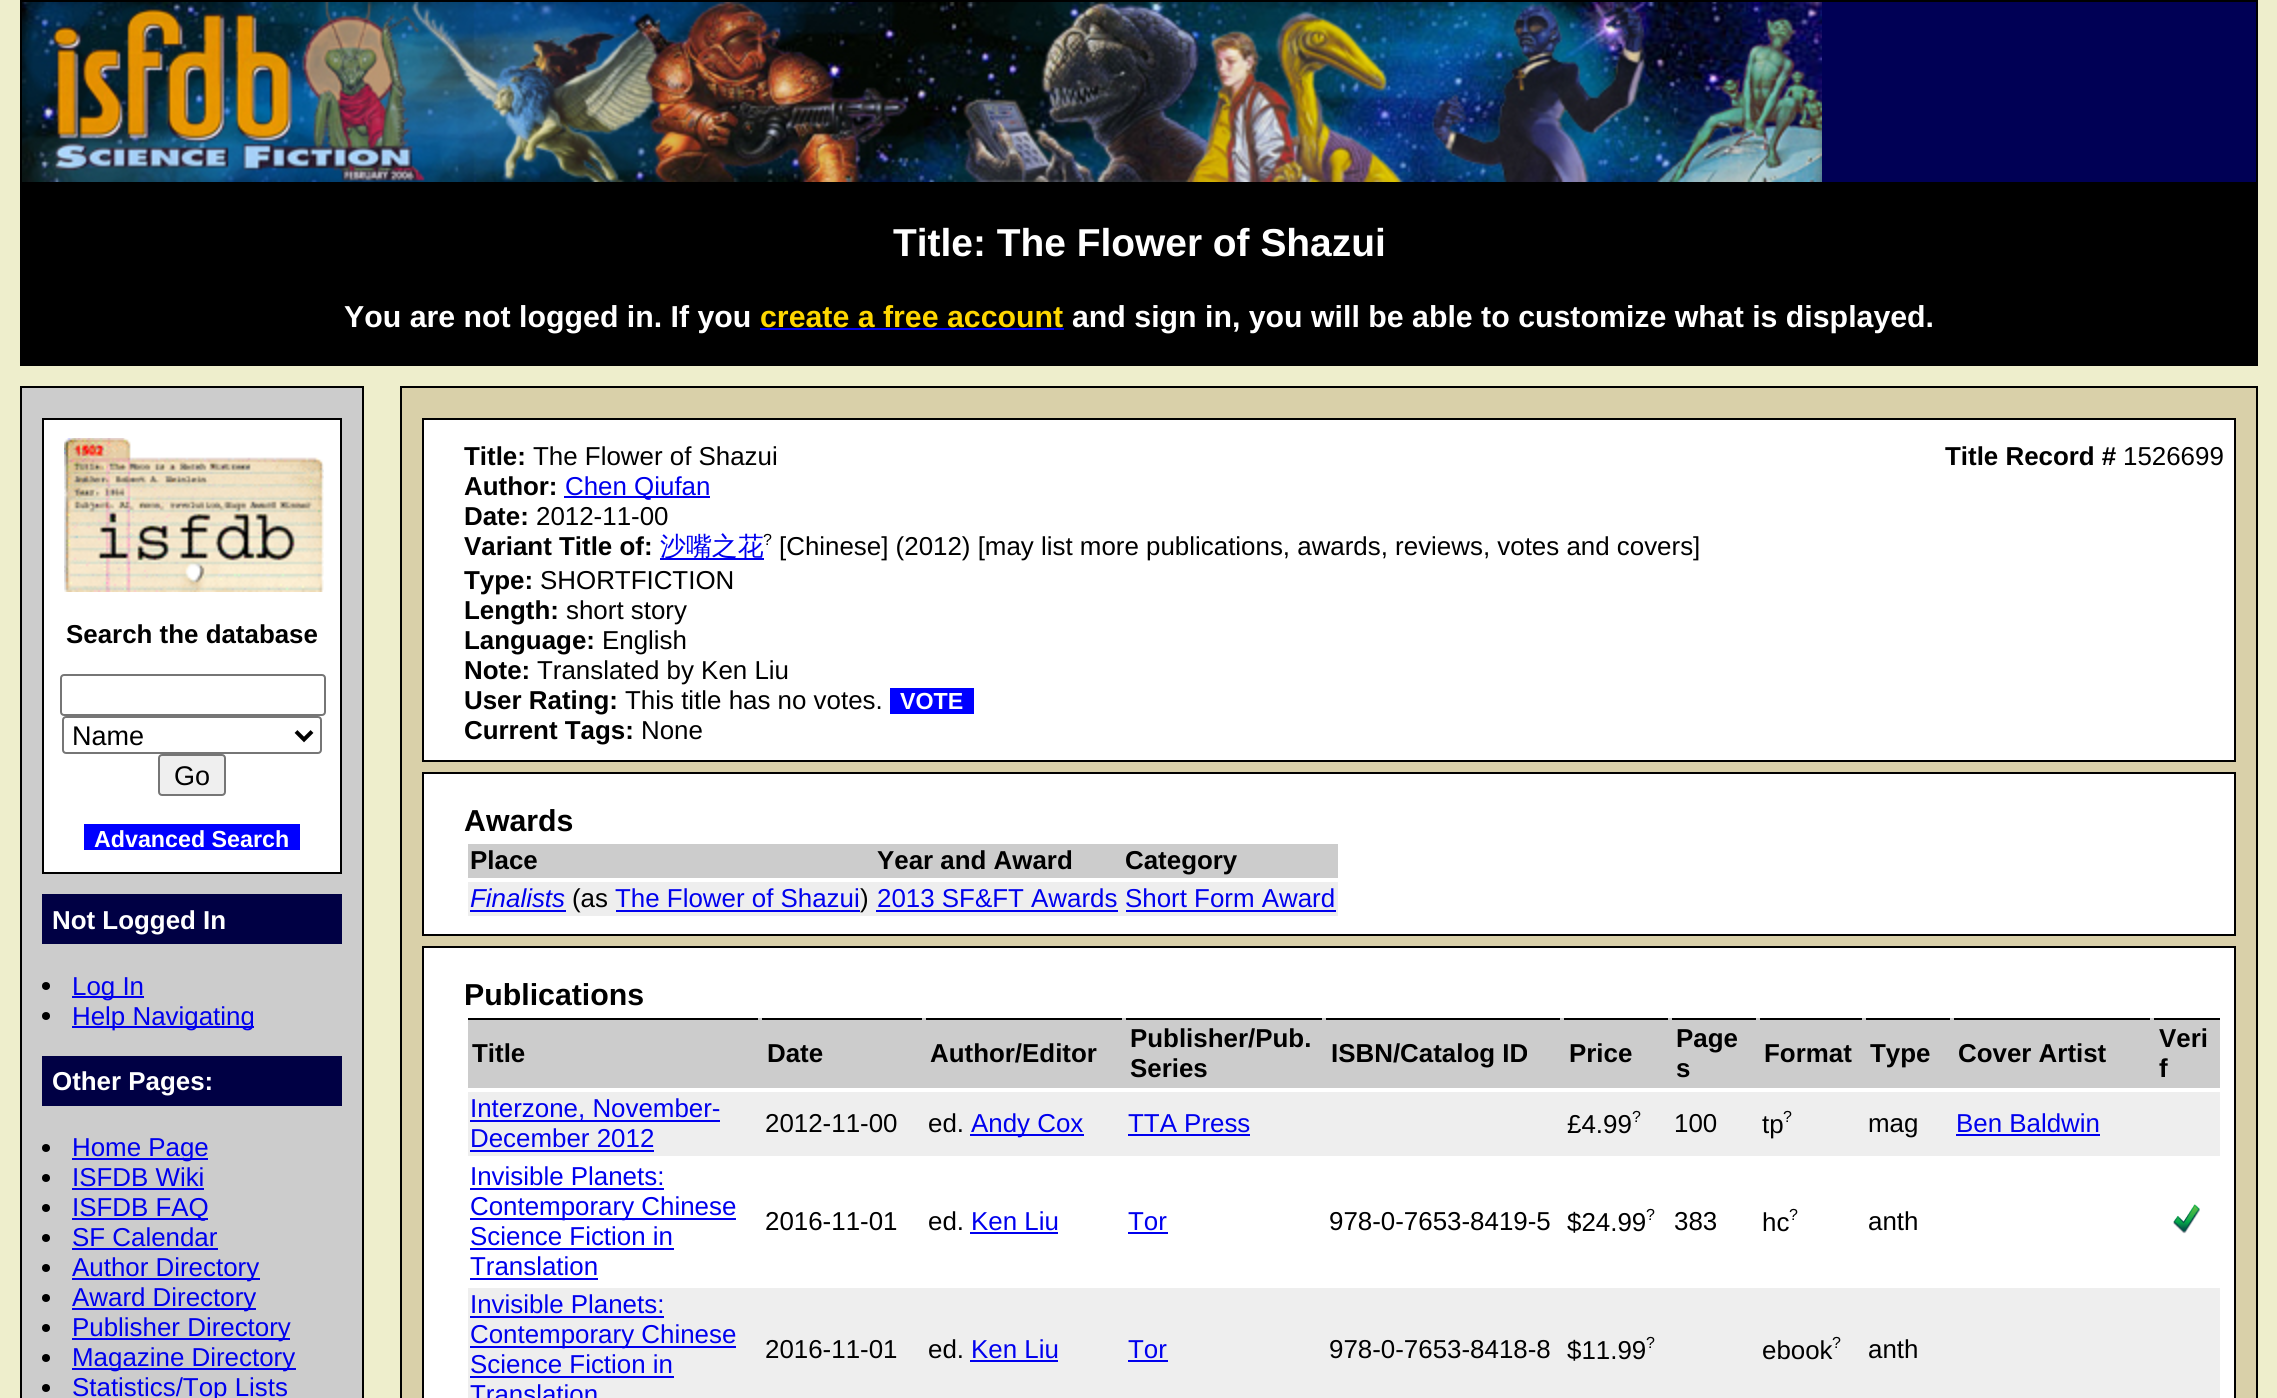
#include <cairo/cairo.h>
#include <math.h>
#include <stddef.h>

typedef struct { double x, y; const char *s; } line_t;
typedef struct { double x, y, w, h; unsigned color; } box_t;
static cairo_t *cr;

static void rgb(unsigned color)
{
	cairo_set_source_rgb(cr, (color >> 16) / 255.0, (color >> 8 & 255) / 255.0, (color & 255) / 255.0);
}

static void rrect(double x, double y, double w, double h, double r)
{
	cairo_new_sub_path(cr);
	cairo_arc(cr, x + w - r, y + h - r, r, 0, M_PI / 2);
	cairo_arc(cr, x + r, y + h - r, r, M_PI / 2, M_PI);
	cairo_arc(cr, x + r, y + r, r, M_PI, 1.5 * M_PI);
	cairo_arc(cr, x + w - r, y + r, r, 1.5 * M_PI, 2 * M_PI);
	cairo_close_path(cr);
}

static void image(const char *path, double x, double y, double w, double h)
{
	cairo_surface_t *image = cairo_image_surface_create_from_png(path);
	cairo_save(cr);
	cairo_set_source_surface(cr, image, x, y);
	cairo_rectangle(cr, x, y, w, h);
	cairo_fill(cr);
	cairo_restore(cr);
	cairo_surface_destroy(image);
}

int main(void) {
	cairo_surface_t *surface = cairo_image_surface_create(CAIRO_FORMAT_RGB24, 2277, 1398);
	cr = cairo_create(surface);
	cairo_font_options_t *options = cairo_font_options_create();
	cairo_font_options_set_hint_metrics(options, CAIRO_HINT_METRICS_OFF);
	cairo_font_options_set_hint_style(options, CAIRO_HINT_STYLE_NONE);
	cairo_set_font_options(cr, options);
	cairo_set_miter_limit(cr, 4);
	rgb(0xeeeecc);
	cairo_paint(cr);
	rgb(0x000055);
	cairo_rectangle(cr, 1822, 2, 434, 180);
	cairo_fill(cr);
	cairo_rectangle(cr, 21, 1, 2236, 182);
	rgb(0x000000);
	cairo_stroke(cr);
	image("img/1.png", 22, 2, 1800, 180);
	cairo_rectangle(cr, 20, 184, 2238, 182);
	cairo_fill(cr);
	rgb(0x0000ee);
	cairo_rectangle(cr, 760, 328, 304, 2);
	cairo_fill(cr);
	rgb(0xcccccc);
	cairo_rectangle(cr, 21, 387, 342, 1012);
	cairo_fill_preserve(cr);
	rgb(0x000000);
	cairo_stroke(cr);
	rgb(0xffffff);
	cairo_rectangle(cr, 43, 419, 298, 454);
	cairo_fill_preserve(cr);
	rgb(0x000000);
	cairo_stroke(cr);
	image("img/2.png", 64, 438, 260, 154);
	rrect(61, 675, 264, 40, 3);
	rgb(0x767676);
	cairo_stroke(cr);
	rrect(63, 717, 258, 36, 3);
	cairo_stroke(cr);
	cairo_new_path(cr);
	cairo_move_to(cr, 296, 731.5);
	cairo_line_to(cr, 304, 739.5);
	cairo_line_to(cr, 312, 731.5);
	rgb(0x000000);
	cairo_set_line_width(cr, 4);
	cairo_stroke(cr);
	rgb(0xefefef);
	rrect(159, 755, 66, 40, 3);
	cairo_fill_preserve(cr);
	rgb(0x767676);
	cairo_set_line_width(cr, 2);
	cairo_stroke(cr);
	rgb(0x0000ff);
	cairo_rectangle(cr, 84, 824, 216, 26);
	cairo_fill(cr);
	rgb(0x000044);
	cairo_rectangle(cr, 42, 894, 300, 50);
	cairo_fill(cr);
	rgb(0x000000);
	cairo_arc(cr, 46, 986, 4, 0, 2 * M_PI);
	cairo_fill(cr);
	rgb(0x0000ee);
	cairo_rectangle(cr, 72, 996, 72, 2);
	cairo_fill(cr);
	rgb(0x000000);
	cairo_arc(cr, 46, 1016, 4, 0, 2 * M_PI);
	cairo_fill(cr);
	rgb(0x0000ee);
	cairo_rectangle(cr, 72, 1026, 182, 2);
	cairo_fill(cr);
	rgb(0x000044);
	cairo_rectangle(cr, 42, 1056, 300, 50);
	cairo_fill(cr);
	rgb(0x000000);
	cairo_arc(cr, 46, 1148, 4, 0, 2 * M_PI);
	cairo_fill(cr);
	rgb(0x0000ee);
	cairo_rectangle(cr, 72, 1158, 136, 2);
	cairo_fill(cr);
	rgb(0x000000);
	cairo_arc(cr, 46, 1178, 4, 0, 2 * M_PI);
	cairo_fill(cr);
	rgb(0x0000ee);
	cairo_rectangle(cr, 72, 1188, 132, 2);
	cairo_fill(cr);
	rgb(0x000000);
	cairo_arc(cr, 46, 1208, 4, 0, 2 * M_PI);
	cairo_fill(cr);
	rgb(0x0000ee);
	cairo_rectangle(cr, 72, 1218, 136, 2);
	cairo_fill(cr);
	rgb(0x000000);
	cairo_arc(cr, 46, 1238, 4, 0, 2 * M_PI);
	cairo_fill(cr);
	rgb(0x0000ee);
	cairo_rectangle(cr, 72, 1248, 146, 2);
	cairo_fill(cr);
	rgb(0x000000);
	cairo_arc(cr, 46, 1268, 4, 0, 2 * M_PI);
	cairo_fill(cr);
	rgb(0x0000ee);
	cairo_rectangle(cr, 72, 1278, 188, 2);
	cairo_fill(cr);
	rgb(0x000000);
	cairo_arc(cr, 46, 1298, 4, 0, 2 * M_PI);
	cairo_fill(cr);
	rgb(0x0000ee);
	cairo_rectangle(cr, 72, 1308, 184, 2);
	cairo_fill(cr);
	rgb(0x000000);
	cairo_arc(cr, 46, 1328, 4, 0, 2 * M_PI);
	cairo_fill(cr);
	rgb(0x0000ee);
	cairo_rectangle(cr, 72, 1338, 218, 2);
	cairo_fill(cr);
	rgb(0x000000);
	cairo_arc(cr, 46, 1358, 4, 0, 2 * M_PI);
	cairo_fill(cr);
	rgb(0x0000ee);
	cairo_rectangle(cr, 72, 1368, 224, 2);
	cairo_fill(cr);
	rgb(0x000000);
	cairo_arc(cr, 46, 1388, 4, 0, 2 * M_PI);
	cairo_fill(cr);
	rgb(0xd9d0a9);
	cairo_rectangle(cr, 401, 387, 1856, 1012);
	cairo_fill_preserve(cr);
	rgb(0x000000);
	cairo_stroke(cr);
	rgb(0xffffff);
	cairo_rectangle(cr, 423, 419, 1812, 342);
	cairo_fill_preserve(cr);
	rgb(0x000000);
	cairo_stroke(cr);
	{
		static const box_t items[] = {
			{564, 496, 146, 2, 0x0000ee},
			{660, 558, 104, 2, 0x0000ee},
			{890, 688, 84, 26, 0x0000ff},
		};
		for (size_t i = 0; i < sizeof items / sizeof *items; i++) {
			rgb(items[i].color);
			cairo_rectangle(cr, items[i].x, items[i].y, items[i].w, items[i].h);
			cairo_fill(cr);
		}
	}
	rgb(0xffffff);
	cairo_rectangle(cr, 423, 773, 1812, 162);
	cairo_fill_preserve(cr);
	rgb(0x000000);
	cairo_stroke(cr);
	{
		static const box_t items[] = {
			{468, 844, 870, 34, 0xcccccc},
			{468, 882, 870, 34, 0xeeeeee},
			{470, 910, 96, 2, 0x0000ee},
			{616, 910, 244, 2, 0x0000ee},
			{876, 910, 242, 2, 0x0000ee},
			{1126, 910, 210, 2, 0x0000ee},
		};
		for (size_t i = 0; i < sizeof items / sizeof *items; i++) {
			rgb(items[i].color);
			cairo_rectangle(cr, items[i].x, items[i].y, items[i].w, items[i].h);
			cairo_fill(cr);
		}
	}
	rgb(0xffffff);
	cairo_rectangle(cr, 423, 947, 1812, 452);
	cairo_fill_preserve(cr);
	rgb(0x000000);
	cairo_stroke(cr);
	{
		static const box_t items[] = {
			{468, 1018, 1752, 70, 0xcccccc},
			{468, 1018, 290, 2, 0x000000},
			{762, 1018, 160, 2, 0x000000},
			{926, 1018, 196, 2, 0x000000},
			{1126, 1018, 196, 2, 0x000000},
			{1326, 1018, 234, 2, 0x000000},
			{1564, 1018, 104, 2, 0x000000},
			{1672, 1018, 84, 2, 0x000000},
			{1760, 1018, 102, 2, 0x000000},
			{1866, 1018, 84, 2, 0x000000},
			{1954, 1018, 196, 2, 0x000000},
			{2154, 1018, 66, 2, 0x000000},
			{468, 1092, 1752, 64, 0xeeeeee},
			{470, 1120, 250, 2, 0x0000ee},
			{470, 1150, 184, 2, 0x0000ee},
			{970, 1134, 114, 2, 0x0000ee},
			{1128, 1134, 122, 2, 0x0000ee},
			{1956, 1134, 144, 2, 0x0000ee},
			{470, 1188, 194, 2, 0x0000ee},
			{470, 1218, 266, 2, 0x0000ee},
			{470, 1248, 204, 2, 0x0000ee},
			{470, 1278, 128, 2, 0x0000ee},
			{970, 1232, 88, 2, 0x0000ee},
			{1128, 1232, 40, 2, 0x0000ee},
		};
		for (size_t i = 0; i < sizeof items / sizeof *items; i++) {
			rgb(items[i].color);
			cairo_rectangle(cr, items[i].x, items[i].y, items[i].w, items[i].h);
			cairo_fill(cr);
		}
	}
	image("img/3.png", 2173, 1204, 27, 30);
	{
		static const box_t items[] = {
			{468, 1288, 1752, 110, 0xeeeeee},
			{470, 1316, 194, 2, 0x0000ee},
			{470, 1346, 266, 2, 0x0000ee},
			{470, 1376, 204, 2, 0x0000ee},
			{970, 1360, 88, 2, 0x0000ee},
			{1128, 1360, 40, 2, 0x0000ee},
		};
		for (size_t i = 0; i < sizeof items / sizeof *items; i++) {
			rgb(items[i].color);
			cairo_rectangle(cr, items[i].x, items[i].y, items[i].w, items[i].h);
			cairo_fill(cr);
		}
	}
	cairo_select_font_face(cr, "Liberation Sans", CAIRO_FONT_SLANT_NORMAL, CAIRO_FONT_WEIGHT_BOLD);
	cairo_set_font_size(cr, 38.9);
	rgb(0xffffff);
	cairo_move_to(cr, 893, 256);
	cairo_show_text(cr, "Title: The Flower of Shazui");
	cairo_set_font_size(cr, 30.3);
	cairo_move_to(cr, 344, 327);
	cairo_show_text(cr, "You are not logged in. If you");
	rgb(0xffd700);
	cairo_move_to(cr, 760, 327);
	cairo_show_text(cr, "create a free account");
	rgb(0xffffff);
	cairo_move_to(cr, 1072, 327);
	cairo_show_text(cr, "and sign in, you will be able to customize what is displayed.");
	cairo_set_font_size(cr, 25.9);
	rgb(0x000000);
	cairo_move_to(cr, 66, 643);
	cairo_show_text(cr, "Search the database");
	cairo_select_font_face(cr, "Liberation Sans", CAIRO_FONT_SLANT_NORMAL, CAIRO_FONT_WEIGHT_NORMAL);
	cairo_set_font_size(cr, 27);
	cairo_move_to(cr, 72, 745);
	cairo_show_text(cr, "Name");
	cairo_move_to(cr, 174, 785);
	cairo_show_text(cr, "Go");
	cairo_select_font_face(cr, "Liberation Sans", CAIRO_FONT_SLANT_NORMAL, CAIRO_FONT_WEIGHT_BOLD);
	cairo_set_font_size(cr, 23.25);
	rgb(0xffffff);
	cairo_move_to(cr, 94, 847);
	cairo_show_text(cr, "Advanced Search");
	cairo_set_font_size(cr, 25.9);
	cairo_move_to(cr, 52, 929);
	cairo_show_text(cr, "Not Logged In");
	cairo_select_font_face(cr, "Liberation Sans", CAIRO_FONT_SLANT_NORMAL, CAIRO_FONT_WEIGHT_NORMAL);
	rgb(0x0000ee);
	cairo_move_to(cr, 72, 995);
	cairo_show_text(cr, "Log In");
	cairo_move_to(cr, 72, 1025);
	cairo_show_text(cr, "Help Navigating");
	cairo_select_font_face(cr, "Liberation Sans", CAIRO_FONT_SLANT_NORMAL, CAIRO_FONT_WEIGHT_BOLD);
	rgb(0xffffff);
	cairo_move_to(cr, 52, 1090);
	cairo_show_text(cr, "Other Pages:");
	cairo_select_font_face(cr, "Liberation Sans", CAIRO_FONT_SLANT_NORMAL, CAIRO_FONT_WEIGHT_NORMAL);
	rgb(0x0000ee);
	{
		static const line_t items[] = {
			{72, 1156, "Home Page"},
			{72, 1186, "ISFDB Wiki"},
			{72, 1216, "ISFDB FAQ"},
			{72, 1246, "SF Calendar"},
			{72, 1276, "Author Directory"},
			{72, 1306, "Award Directory"},
			{72, 1336, "Publisher Directory"},
			{72, 1366, "Magazine Directory"},
			{72, 1396, "Statistics/Top Lists"},
		};
		for (size_t i = 0; i < sizeof items / sizeof *items; i++) {
			cairo_move_to(cr, items[i].x, items[i].y);
			cairo_show_text(cr, items[i].s);
		}
	}
	cairo_select_font_face(cr, "Liberation Sans", CAIRO_FONT_SLANT_NORMAL, CAIRO_FONT_WEIGHT_BOLD);
	rgb(0x000000);
	cairo_move_to(cr, 464, 465);
	cairo_show_text(cr, "Title:");
	cairo_select_font_face(cr, "Liberation Sans", CAIRO_FONT_SLANT_NORMAL, CAIRO_FONT_WEIGHT_NORMAL);
	cairo_move_to(cr, 533, 465);
	cairo_show_text(cr, "The Flower of Shazui");
	cairo_select_font_face(cr, "Liberation Sans", CAIRO_FONT_SLANT_NORMAL, CAIRO_FONT_WEIGHT_BOLD);
	cairo_move_to(cr, 1945, 465);
	cairo_show_text(cr, "Title Record #");
	cairo_select_font_face(cr, "Liberation Sans", CAIRO_FONT_SLANT_NORMAL, CAIRO_FONT_WEIGHT_NORMAL);
	cairo_move_to(cr, 2123, 465);
	cairo_show_text(cr, "1526699");
	cairo_select_font_face(cr, "Liberation Sans", CAIRO_FONT_SLANT_NORMAL, CAIRO_FONT_WEIGHT_BOLD);
	cairo_move_to(cr, 464, 495);
	cairo_show_text(cr, "Author:");
	cairo_select_font_face(cr, "Liberation Sans", CAIRO_FONT_SLANT_NORMAL, CAIRO_FONT_WEIGHT_NORMAL);
	rgb(0x0000ee);
	cairo_move_to(cr, 565, 495);
	cairo_show_text(cr, "Chen Qiufan");
	cairo_select_font_face(cr, "Liberation Sans", CAIRO_FONT_SLANT_NORMAL, CAIRO_FONT_WEIGHT_BOLD);
	rgb(0x000000);
	cairo_move_to(cr, 464, 525);
	cairo_show_text(cr, "Date:");
	cairo_select_font_face(cr, "Liberation Sans", CAIRO_FONT_SLANT_NORMAL, CAIRO_FONT_WEIGHT_NORMAL);
	cairo_move_to(cr, 536, 525);
	cairo_show_text(cr, "2012-11-00");
	cairo_select_font_face(cr, "Liberation Sans", CAIRO_FONT_SLANT_NORMAL, CAIRO_FONT_WEIGHT_BOLD);
	cairo_move_to(cr, 464, 555);
	cairo_show_text(cr, "Variant Title of:");
	cairo_select_font_face(cr, "WenQuanYi Zen Hei Medium", CAIRO_FONT_SLANT_NORMAL, CAIRO_FONT_WEIGHT_NORMAL);
	rgb(0x0000ee);
	cairo_move_to(cr, 660, 555);
	cairo_show_text(cr, "沙嘴之花");
	cairo_select_font_face(cr, "Liberation Sans", CAIRO_FONT_SLANT_NORMAL, CAIRO_FONT_WEIGHT_NORMAL);
	cairo_set_font_size(cr, 16);
	rgb(0x000000);
	cairo_move_to(cr, 763, 545);
	cairo_show_text(cr, "?");
	cairo_set_font_size(cr, 25.9);
	cairo_move_to(cr, 779, 555);
	cairo_show_text(cr, "[Chinese] (2012) [may list more publications, awards, reviews, votes and covers]");
	cairo_select_font_face(cr, "Liberation Sans", CAIRO_FONT_SLANT_NORMAL, CAIRO_FONT_WEIGHT_BOLD);
	cairo_move_to(cr, 464, 589);
	cairo_show_text(cr, "Type:");
	cairo_select_font_face(cr, "Liberation Sans", CAIRO_FONT_SLANT_NORMAL, CAIRO_FONT_WEIGHT_NORMAL);
	cairo_move_to(cr, 540, 589);
	cairo_show_text(cr, "SHORTFICTION");
	cairo_select_font_face(cr, "Liberation Sans", CAIRO_FONT_SLANT_NORMAL, CAIRO_FONT_WEIGHT_BOLD);
	cairo_move_to(cr, 464, 619);
	cairo_show_text(cr, "Length:");
	cairo_select_font_face(cr, "Liberation Sans", CAIRO_FONT_SLANT_NORMAL, CAIRO_FONT_WEIGHT_NORMAL);
	cairo_move_to(cr, 566, 619);
	cairo_show_text(cr, "short story");
	cairo_select_font_face(cr, "Liberation Sans", CAIRO_FONT_SLANT_NORMAL, CAIRO_FONT_WEIGHT_BOLD);
	cairo_move_to(cr, 464, 649);
	cairo_show_text(cr, "Language:");
	cairo_select_font_face(cr, "Liberation Sans", CAIRO_FONT_SLANT_NORMAL, CAIRO_FONT_WEIGHT_NORMAL);
	cairo_move_to(cr, 602, 649);
	cairo_show_text(cr, "English");
	cairo_select_font_face(cr, "Liberation Sans", CAIRO_FONT_SLANT_NORMAL, CAIRO_FONT_WEIGHT_BOLD);
	cairo_move_to(cr, 464, 679);
	cairo_show_text(cr, "Note:");
	cairo_select_font_face(cr, "Liberation Sans", CAIRO_FONT_SLANT_NORMAL, CAIRO_FONT_WEIGHT_NORMAL);
	cairo_move_to(cr, 537, 679);
	cairo_show_text(cr, "Translated by Ken Liu");
	cairo_select_font_face(cr, "Liberation Sans", CAIRO_FONT_SLANT_NORMAL, CAIRO_FONT_WEIGHT_BOLD);
	cairo_move_to(cr, 464, 709);
	cairo_show_text(cr, "User Rating:");
	cairo_select_font_face(cr, "Liberation Sans", CAIRO_FONT_SLANT_NORMAL, CAIRO_FONT_WEIGHT_NORMAL);
	cairo_move_to(cr, 625, 709);
	cairo_show_text(cr, "This title has no votes.");
	cairo_select_font_face(cr, "Liberation Sans", CAIRO_FONT_SLANT_NORMAL, CAIRO_FONT_WEIGHT_BOLD);
	cairo_set_font_size(cr, 23.25);
	rgb(0xffffff);
	cairo_move_to(cr, 900, 709);
	cairo_show_text(cr, "VOTE");
	cairo_set_font_size(cr, 25.9);
	rgb(0x000000);
	cairo_move_to(cr, 464, 739);
	cairo_show_text(cr, "Current Tags:");
	cairo_select_font_face(cr, "Liberation Sans", CAIRO_FONT_SLANT_NORMAL, CAIRO_FONT_WEIGHT_NORMAL);
	cairo_move_to(cr, 641, 739);
	cairo_show_text(cr, "None");
	cairo_select_font_face(cr, "Liberation Sans", CAIRO_FONT_SLANT_NORMAL, CAIRO_FONT_WEIGHT_BOLD);
	cairo_set_font_size(cr, 30.3);
	cairo_move_to(cr, 464, 831);
	cairo_show_text(cr, "Awards");
	cairo_set_font_size(cr, 25.9);
	{
		static const line_t items[] = {
			{470, 869, "Place"},
			{877, 869, "Year and Award"},
			{1125, 869, "Category"},
		};
		for (size_t i = 0; i < sizeof items / sizeof *items; i++) {
			cairo_move_to(cr, items[i].x, items[i].y);
			cairo_show_text(cr, items[i].s);
		}
	}
	cairo_select_font_face(cr, "Liberation Sans", CAIRO_FONT_SLANT_ITALIC, CAIRO_FONT_WEIGHT_NORMAL);
	rgb(0x0000ee);
	cairo_move_to(cr, 470, 907);
	cairo_show_text(cr, "Finalists");
	cairo_select_font_face(cr, "Liberation Sans", CAIRO_FONT_SLANT_NORMAL, CAIRO_FONT_WEIGHT_NORMAL);
	rgb(0x000000);
	cairo_move_to(cr, 572, 907);
	cairo_show_text(cr, "(as");
	rgb(0x0000ee);
	cairo_move_to(cr, 615, 907);
	cairo_show_text(cr, "The Flower of Shazui");
	rgb(0x000000);
	cairo_move_to(cr, 860, 907);
	cairo_show_text(cr, ")");
	rgb(0x0000ee);
	cairo_move_to(cr, 877, 907);
	cairo_show_text(cr, "2013 SF&FT Awards");
	cairo_move_to(cr, 1125, 907);
	cairo_show_text(cr, "Short Form Award");
	cairo_select_font_face(cr, "Liberation Sans", CAIRO_FONT_SLANT_NORMAL, CAIRO_FONT_WEIGHT_BOLD);
	cairo_set_font_size(cr, 30.3);
	rgb(0x000000);
	cairo_move_to(cr, 464, 1005);
	cairo_show_text(cr, "Publications");
	cairo_set_font_size(cr, 25.9);
	{
		static const line_t items[] = {
			{472, 1062, "Title"},
			{767, 1062, "Date"},
			{930, 1062, "Author/Editor"},
			{1130, 1047, "Publisher/Pub."},
			{1130, 1077, "Series"},
			{1331, 1062, "ISBN/Catalog ID"},
			{1569, 1062, "Price"},
			{1676, 1047, "Page"},
			{1676, 1077, "s"},
			{1764, 1062, "Format"},
			{1870, 1062, "Type"},
			{1958, 1062, "Cover Artist"},
			{2159, 1047, "Veri"},
			{2159, 1077, "f"},
		};
		for (size_t i = 0; i < sizeof items / sizeof *items; i++) {
			cairo_move_to(cr, items[i].x, items[i].y);
			cairo_show_text(cr, items[i].s);
		}
	}
	cairo_select_font_face(cr, "Liberation Sans", CAIRO_FONT_SLANT_NORMAL, CAIRO_FONT_WEIGHT_NORMAL);
	rgb(0x0000ee);
	cairo_move_to(cr, 470, 1117);
	cairo_show_text(cr, "Interzone, November-");
	cairo_move_to(cr, 470, 1147);
	cairo_show_text(cr, "December 2012");
	rgb(0x000000);
	cairo_move_to(cr, 765, 1132);
	cairo_show_text(cr, "2012-11-00");
	cairo_move_to(cr, 928, 1132);
	cairo_show_text(cr, "ed.");
	rgb(0x0000ee);
	cairo_move_to(cr, 971, 1132);
	cairo_show_text(cr, "Andy Cox");
	cairo_move_to(cr, 1128, 1132);
	cairo_show_text(cr, "TTA Press");
	rgb(0x000000);
	cairo_move_to(cr, 1567, 1133);
	cairo_show_text(cr, "£4.99");
	cairo_set_font_size(cr, 16);
	cairo_move_to(cr, 1632, 1122);
	cairo_show_text(cr, "?");
	cairo_set_font_size(cr, 25.9);
	cairo_move_to(cr, 1674, 1132);
	cairo_show_text(cr, "100");
	cairo_move_to(cr, 1762, 1133);
	cairo_show_text(cr, "tp");
	cairo_set_font_size(cr, 16);
	cairo_move_to(cr, 1783, 1122);
	cairo_show_text(cr, "?");
	cairo_set_font_size(cr, 25.9);
	cairo_move_to(cr, 1868, 1132);
	cairo_show_text(cr, "mag");
	rgb(0x0000ee);
	{
		static const line_t items[] = {
			{1956, 1132, "Ben Baldwin"},
			{470, 1185, "Invisible Planets:"},
			{470, 1215, "Contemporary Chinese"},
			{470, 1245, "Science Fiction in"},
			{470, 1275, "Translation"},
		};
		for (size_t i = 0; i < sizeof items / sizeof *items; i++) {
			cairo_move_to(cr, items[i].x, items[i].y);
			cairo_show_text(cr, items[i].s);
		}
	}
	rgb(0x000000);
	cairo_move_to(cr, 765, 1230);
	cairo_show_text(cr, "2016-11-01");
	cairo_move_to(cr, 928, 1230);
	cairo_show_text(cr, "ed.");
	rgb(0x0000ee);
	cairo_move_to(cr, 971, 1230);
	cairo_show_text(cr, "Ken Liu");
	cairo_move_to(cr, 1128, 1230);
	cairo_show_text(cr, "Tor");
	rgb(0x000000);
	cairo_move_to(cr, 1329, 1230);
	cairo_show_text(cr, "978-0-7653-8419-5");
	cairo_move_to(cr, 1567, 1231);
	cairo_show_text(cr, "$24.99");
	cairo_set_font_size(cr, 16);
	cairo_move_to(cr, 1646, 1220);
	cairo_show_text(cr, "?");
	cairo_set_font_size(cr, 25.9);
	cairo_move_to(cr, 1674, 1230);
	cairo_show_text(cr, "383");
	cairo_move_to(cr, 1762, 1231);
	cairo_show_text(cr, "hc");
	cairo_set_font_size(cr, 16);
	cairo_move_to(cr, 1789, 1220);
	cairo_show_text(cr, "?");
	cairo_set_font_size(cr, 25.9);
	cairo_move_to(cr, 1868, 1230);
	cairo_show_text(cr, "anth");
	rgb(0x0000ee);
	{
		static const line_t items[] = {
			{470, 1313, "Invisible Planets:"},
			{470, 1343, "Contemporary Chinese"},
			{470, 1373, "Science Fiction in"},
			{470, 1403, "Translation"},
		};
		for (size_t i = 0; i < sizeof items / sizeof *items; i++) {
			cairo_move_to(cr, items[i].x, items[i].y);
			cairo_show_text(cr, items[i].s);
		}
	}
	rgb(0x000000);
	cairo_move_to(cr, 765, 1358);
	cairo_show_text(cr, "2016-11-01");
	cairo_move_to(cr, 928, 1358);
	cairo_show_text(cr, "ed.");
	rgb(0x0000ee);
	cairo_move_to(cr, 971, 1358);
	cairo_show_text(cr, "Ken Liu");
	cairo_move_to(cr, 1128, 1358);
	cairo_show_text(cr, "Tor");
	rgb(0x000000);
	cairo_move_to(cr, 1329, 1358);
	cairo_show_text(cr, "978-0-7653-8418-8");
	cairo_move_to(cr, 1567, 1359);
	cairo_show_text(cr, "$11.99");
	cairo_set_font_size(cr, 16);
	cairo_move_to(cr, 1646, 1348);
	cairo_show_text(cr, "?");
	cairo_set_font_size(cr, 25.9);
	cairo_move_to(cr, 1762, 1359);
	cairo_show_text(cr, "ebook");
	cairo_set_font_size(cr, 16);
	cairo_move_to(cr, 1832, 1348);
	cairo_show_text(cr, "?");
	cairo_set_font_size(cr, 25.9);
	cairo_move_to(cr, 1868, 1358);
	cairo_show_text(cr, "anth");
	cairo_surface_write_to_png(surface, "page.png");
	cairo_font_options_destroy(options);
	cairo_destroy(cr);
	cairo_surface_destroy(surface);
	return 0;
}
